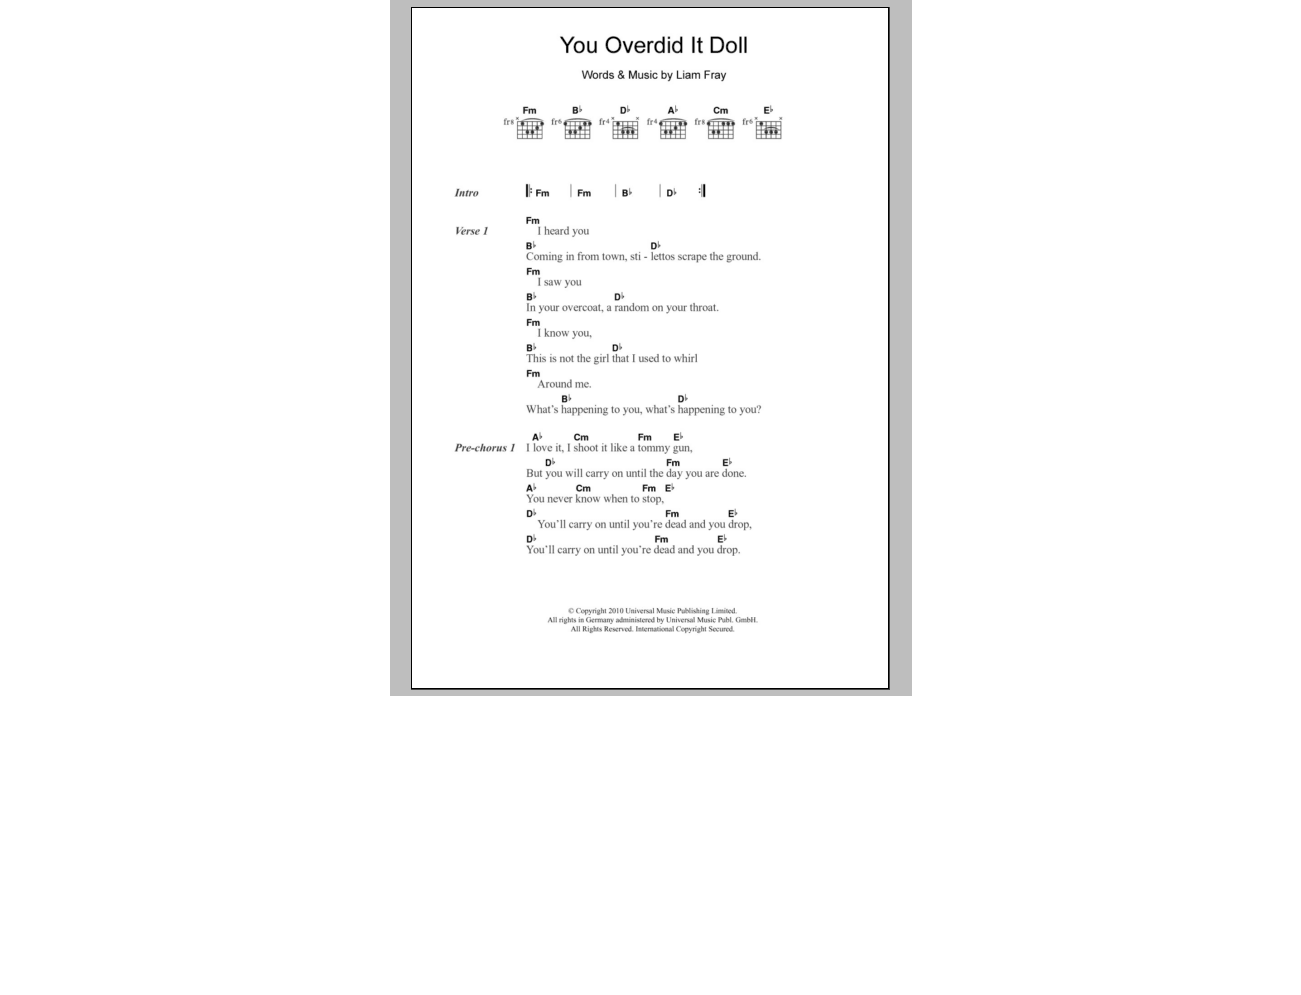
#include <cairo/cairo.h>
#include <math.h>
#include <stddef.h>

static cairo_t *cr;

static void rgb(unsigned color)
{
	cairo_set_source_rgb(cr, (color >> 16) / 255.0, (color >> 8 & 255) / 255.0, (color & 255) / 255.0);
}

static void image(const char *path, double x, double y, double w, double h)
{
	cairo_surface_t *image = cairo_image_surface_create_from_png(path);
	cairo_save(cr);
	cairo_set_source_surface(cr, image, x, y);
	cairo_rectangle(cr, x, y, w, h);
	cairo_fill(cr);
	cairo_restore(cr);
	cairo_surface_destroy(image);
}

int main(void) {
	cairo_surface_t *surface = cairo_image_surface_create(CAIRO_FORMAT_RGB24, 1301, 995);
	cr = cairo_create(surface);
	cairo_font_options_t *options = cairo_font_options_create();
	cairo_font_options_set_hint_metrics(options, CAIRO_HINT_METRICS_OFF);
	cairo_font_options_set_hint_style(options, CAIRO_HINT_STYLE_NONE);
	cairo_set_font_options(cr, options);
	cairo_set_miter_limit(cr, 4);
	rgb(0xffffff);
	cairo_paint(cr);
	image("img/1.png", 390, 0, 522, 696);
	cairo_surface_write_to_png(surface, "page.png");
	cairo_font_options_destroy(options);
	cairo_destroy(cr);
	cairo_surface_destroy(surface);
	return 0;
}
